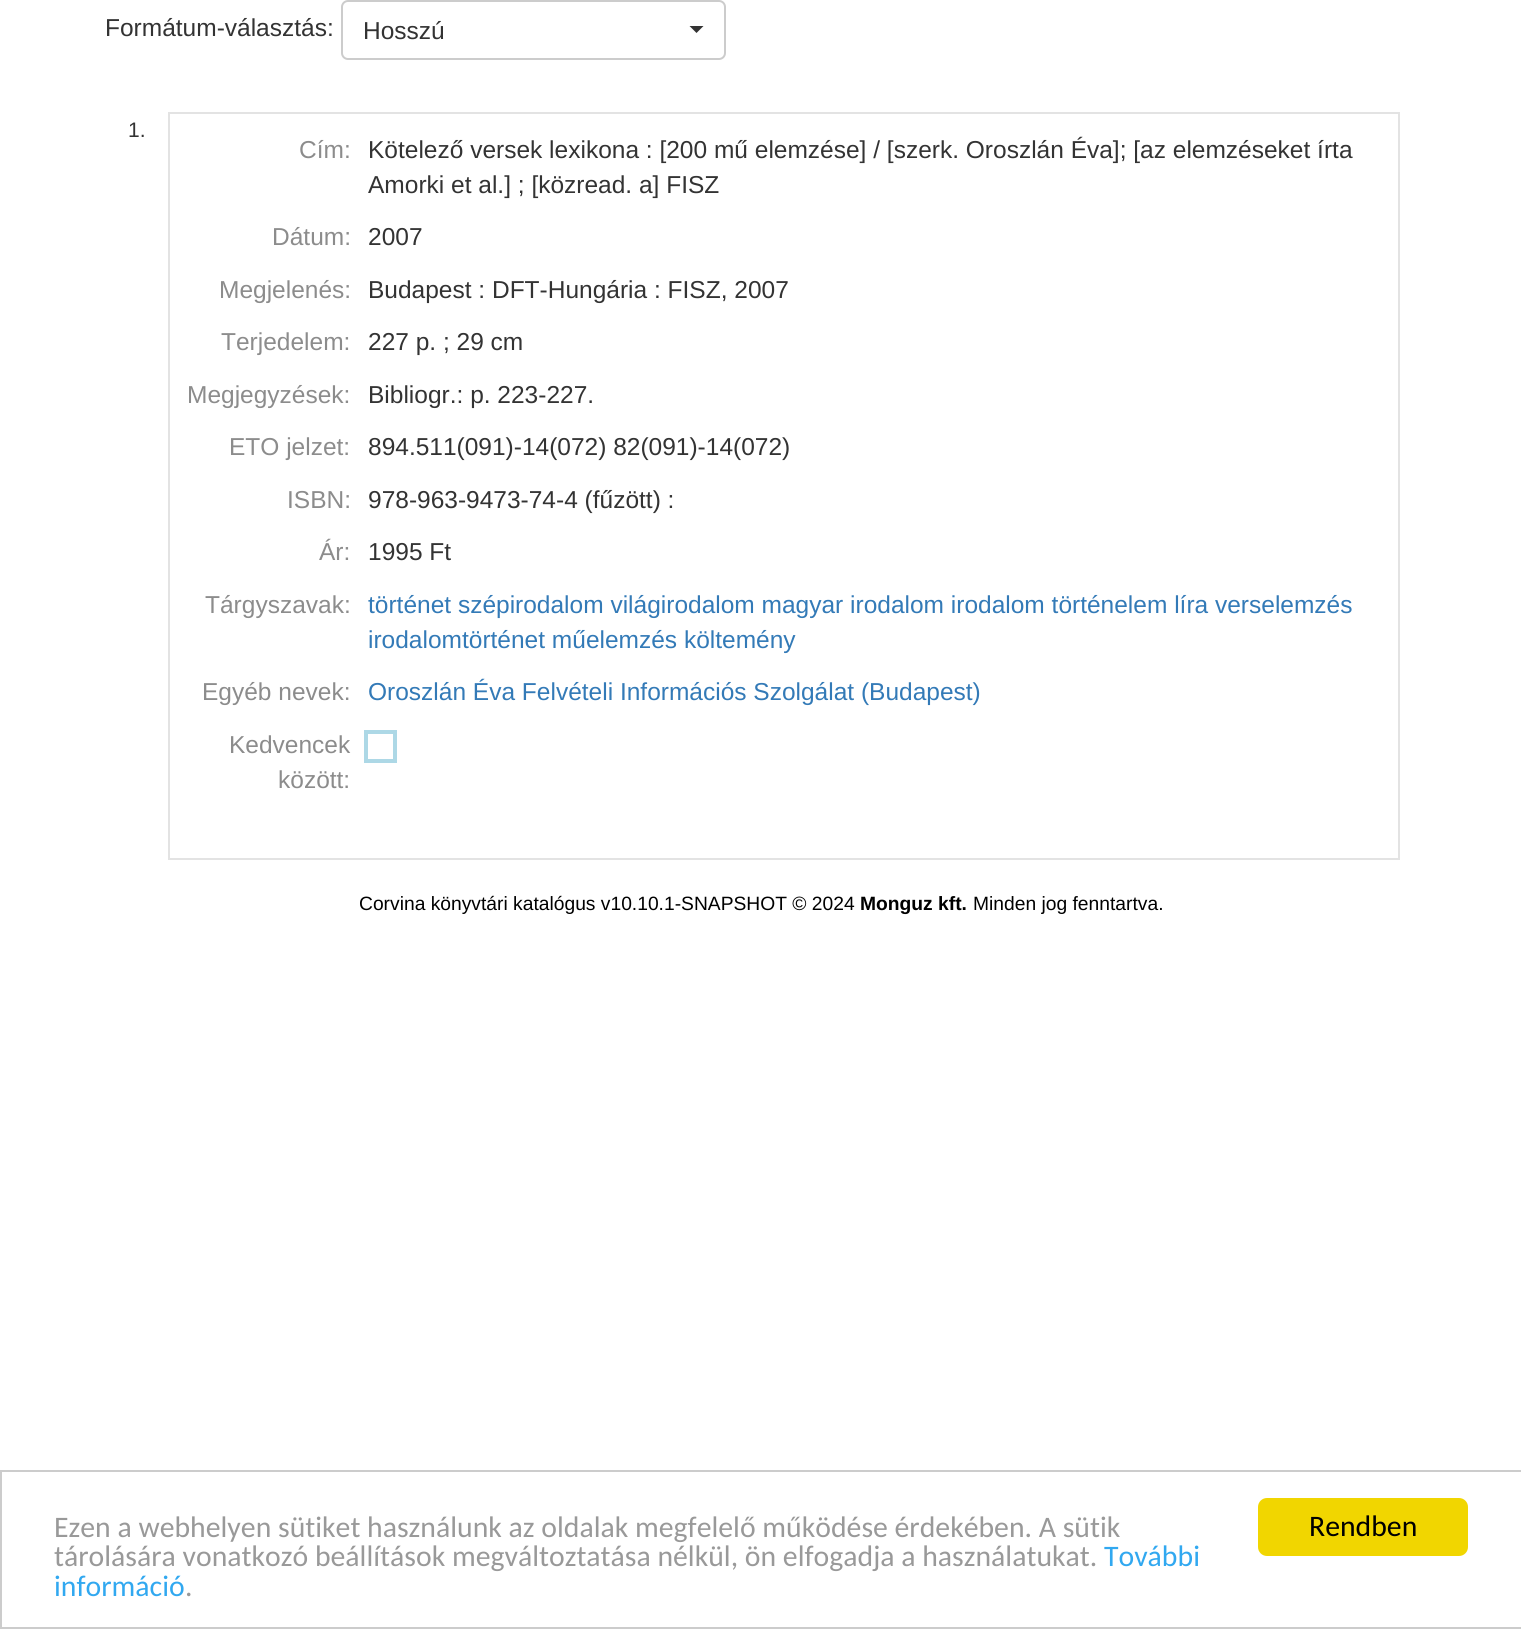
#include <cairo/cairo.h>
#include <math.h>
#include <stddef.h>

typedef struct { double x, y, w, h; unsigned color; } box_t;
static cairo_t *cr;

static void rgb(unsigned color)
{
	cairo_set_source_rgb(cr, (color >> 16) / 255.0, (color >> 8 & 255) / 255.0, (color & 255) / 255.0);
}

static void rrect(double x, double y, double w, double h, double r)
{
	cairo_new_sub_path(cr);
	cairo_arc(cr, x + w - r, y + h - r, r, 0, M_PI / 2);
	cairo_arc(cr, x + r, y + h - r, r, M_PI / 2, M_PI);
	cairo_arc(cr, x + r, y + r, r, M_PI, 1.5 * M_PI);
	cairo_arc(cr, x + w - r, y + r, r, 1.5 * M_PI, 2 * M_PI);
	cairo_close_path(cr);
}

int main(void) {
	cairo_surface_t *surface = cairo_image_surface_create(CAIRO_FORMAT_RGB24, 1521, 1629);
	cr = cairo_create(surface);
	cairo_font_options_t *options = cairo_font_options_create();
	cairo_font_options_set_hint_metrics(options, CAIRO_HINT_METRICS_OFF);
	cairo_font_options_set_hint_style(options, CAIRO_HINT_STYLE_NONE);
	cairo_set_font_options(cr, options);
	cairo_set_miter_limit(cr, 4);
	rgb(0xffffff);
	cairo_paint(cr);
	rrect(342, 1, 383, 58, 6);
	rgb(0xcccccc);
	cairo_stroke(cr);
	rgb(0x333333);
	cairo_new_path(cr);
	cairo_move_to(cr, 689.5, 26);
	cairo_line_to(cr, 703.5, 26);
	cairo_line_to(cr, 696.5, 33);
	cairo_close_path(cr);
	cairo_fill(cr);
	{
		static const box_t items[] = {
			{168, 112, 1232, 2, 0xe3e3e3},
			{1398, 112, 2, 747, 0xe3e3e3},
			{168, 858, 1232, 2, 0xe3e3e3},
			{168, 112, 2, 747, 0xe3e3e3},
		};
		for (size_t i = 0; i < sizeof items / sizeof *items; i++) {
			rgb(items[i].color);
			cairo_rectangle(cr, items[i].x, items[i].y, items[i].w, items[i].h);
			cairo_fill(cr);
		}
	}
	cairo_rectangle(cr, 366, 732, 29, 29);
	rgb(0xadd8e6);
	cairo_set_line_width(cr, 4);
	cairo_stroke(cr);
	cairo_rectangle(cr, 1, 1471, 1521, 157);
	rgb(0xcccccc);
	cairo_set_line_width(cr, 2);
	cairo_stroke(cr);
	rgb(0xf1d600);
	rrect(1258, 1498, 210, 58, 9);
	cairo_fill(cr);
	cairo_select_font_face(cr, "Liberation Sans", CAIRO_FONT_SLANT_NORMAL, CAIRO_FONT_WEIGHT_NORMAL);
	cairo_set_font_size(cr, 24.5);
	rgb(0x333333);
	cairo_move_to(cr, 105, 36);
	cairo_show_text(cr, "Formátum-választás:");
	cairo_move_to(cr, 363, 39);
	cairo_show_text(cr, "Hosszú");
	cairo_set_font_size(cr, 21);
	cairo_move_to(cr, 128, 137);
	cairo_show_text(cr, "1.");
	cairo_set_font_size(cr, 24.5);
	rgb(0x8c8c8c);
	cairo_move_to(cr, 299, 158);
	cairo_show_text(cr, "Cím:");
	rgb(0x333333);
	cairo_move_to(cr, 368, 158);
	cairo_show_text(cr, "Kötelező versek lexikona : [200 mű elemzése] / [szerk. Oroszlán Éva]; [az elemzéseket írta");
	cairo_move_to(cr, 368, 193);
	cairo_show_text(cr, "Amorki et al.] ; [közread. a] FISZ");
	rgb(0x8c8c8c);
	cairo_move_to(cr, 272, 245);
	cairo_show_text(cr, "Dátum:");
	rgb(0x333333);
	cairo_move_to(cr, 368, 245);
	cairo_show_text(cr, "2007");
	rgb(0x8c8c8c);
	cairo_move_to(cr, 219, 298);
	cairo_show_text(cr, "Megjelenés:");
	rgb(0x333333);
	cairo_move_to(cr, 368, 298);
	cairo_show_text(cr, "Budapest : DFT-Hungária : FISZ, 2007");
	rgb(0x8c8c8c);
	cairo_move_to(cr, 221, 350);
	cairo_show_text(cr, "Terjedelem:");
	rgb(0x333333);
	cairo_move_to(cr, 368, 350);
	cairo_show_text(cr, "227 p. ; 29 cm");
	rgb(0x8c8c8c);
	cairo_move_to(cr, 187, 403);
	cairo_show_text(cr, "Megjegyzések:");
	rgb(0x333333);
	cairo_move_to(cr, 368, 403);
	cairo_show_text(cr, "Bibliogr.: p. 223-227.");
	rgb(0x8c8c8c);
	cairo_move_to(cr, 229, 455);
	cairo_show_text(cr, "ETO jelzet:");
	rgb(0x333333);
	cairo_move_to(cr, 368, 455);
	cairo_show_text(cr, "894.511(091)-14(072) 82(091)-14(072)");
	rgb(0x8c8c8c);
	cairo_move_to(cr, 287, 508);
	cairo_show_text(cr, "ISBN:");
	rgb(0x333333);
	cairo_move_to(cr, 368, 508);
	cairo_show_text(cr, "978-963-9473-74-4 (fűzött) :");
	rgb(0x8c8c8c);
	cairo_move_to(cr, 319, 560);
	cairo_show_text(cr, "Ár:");
	rgb(0x333333);
	cairo_move_to(cr, 368, 560);
	cairo_show_text(cr, "1995 Ft");
	rgb(0x8c8c8c);
	cairo_move_to(cr, 205, 613);
	cairo_show_text(cr, "Tárgyszavak:");
	rgb(0x337ab7);
	cairo_move_to(cr, 368, 613);
	cairo_show_text(cr, "történet szépirodalom világirodalom magyar irodalom irodalom történelem líra verselemzés");
	cairo_move_to(cr, 368, 648);
	cairo_show_text(cr, "irodalomtörténet műelemzés költemény");
	rgb(0x8c8c8c);
	cairo_move_to(cr, 202, 700);
	cairo_show_text(cr, "Egyéb nevek:");
	rgb(0x337ab7);
	cairo_move_to(cr, 368, 700);
	cairo_show_text(cr, "Oroszlán Éva Felvételi Információs Szolgálat (Budapest)");
	rgb(0x8c8c8c);
	cairo_move_to(cr, 229, 753);
	cairo_show_text(cr, "Kedvencek");
	cairo_move_to(cr, 278, 788);
	cairo_show_text(cr, "között:");
	cairo_set_font_size(cr, 19.25);
	rgb(0x000000);
	cairo_move_to(cr, 359, 910);
	cairo_show_text(cr, "Corvina könyvtári katalógus v10.10.1-SNAPSHOT © 2024");
	cairo_select_font_face(cr, "Liberation Sans", CAIRO_FONT_SLANT_NORMAL, CAIRO_FONT_WEIGHT_BOLD);
	cairo_move_to(cr, 860, 910);
	cairo_show_text(cr, "Monguz kft.");
	cairo_select_font_face(cr, "Liberation Sans", CAIRO_FONT_SLANT_NORMAL, CAIRO_FONT_WEIGHT_NORMAL);
	cairo_move_to(cr, 973, 910);
	cairo_show_text(cr, "Minden jog fenntartva.");
	cairo_select_font_face(cr, "Carlito", CAIRO_FONT_SLANT_NORMAL, CAIRO_FONT_WEIGHT_NORMAL);
	cairo_set_font_size(cr, 29.75);
	rgb(0x999999);
	cairo_move_to(cr, 54, 1537);
	cairo_show_text(cr, "Ezen a webhelyen sütiket használunk az oldalak megfelelő működése érdekében. A sütik");
	cairo_move_to(cr, 54, 1566);
	cairo_show_text(cr, "tárolására vonatkozó beállítások megváltoztatása nélkül, ön elfogadja a használatukat.");
	rgb(0x31a8f0);
	cairo_move_to(cr, 1104, 1566);
	cairo_show_text(cr, "További");
	cairo_move_to(cr, 54, 1596);
	cairo_show_text(cr, "információ");
	rgb(0x999999);
	cairo_move_to(cr, 185, 1596);
	cairo_show_text(cr, ".");
	rgb(0x000000);
	cairo_move_to(cr, 1309, 1536);
	cairo_show_text(cr, "Rendben");
	cairo_surface_write_to_png(surface, "page.png");
	cairo_font_options_destroy(options);
	cairo_destroy(cr);
	cairo_surface_destroy(surface);
	return 0;
}
